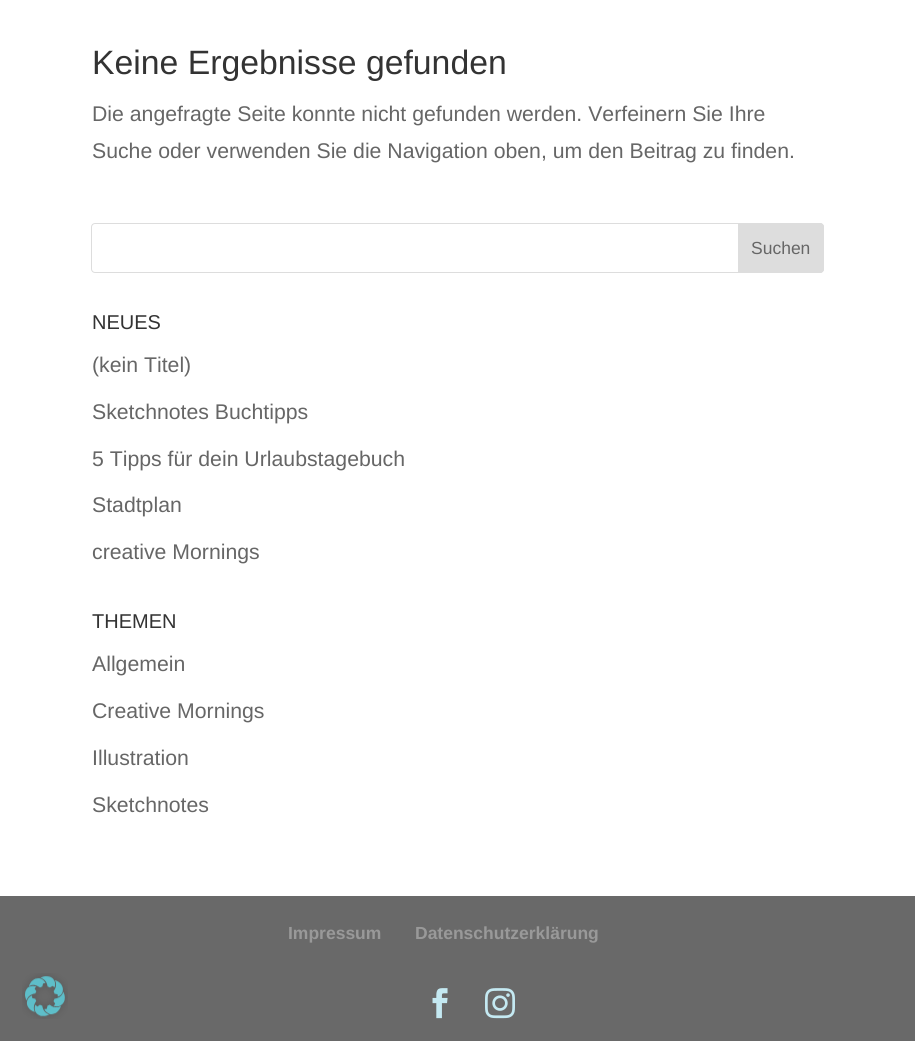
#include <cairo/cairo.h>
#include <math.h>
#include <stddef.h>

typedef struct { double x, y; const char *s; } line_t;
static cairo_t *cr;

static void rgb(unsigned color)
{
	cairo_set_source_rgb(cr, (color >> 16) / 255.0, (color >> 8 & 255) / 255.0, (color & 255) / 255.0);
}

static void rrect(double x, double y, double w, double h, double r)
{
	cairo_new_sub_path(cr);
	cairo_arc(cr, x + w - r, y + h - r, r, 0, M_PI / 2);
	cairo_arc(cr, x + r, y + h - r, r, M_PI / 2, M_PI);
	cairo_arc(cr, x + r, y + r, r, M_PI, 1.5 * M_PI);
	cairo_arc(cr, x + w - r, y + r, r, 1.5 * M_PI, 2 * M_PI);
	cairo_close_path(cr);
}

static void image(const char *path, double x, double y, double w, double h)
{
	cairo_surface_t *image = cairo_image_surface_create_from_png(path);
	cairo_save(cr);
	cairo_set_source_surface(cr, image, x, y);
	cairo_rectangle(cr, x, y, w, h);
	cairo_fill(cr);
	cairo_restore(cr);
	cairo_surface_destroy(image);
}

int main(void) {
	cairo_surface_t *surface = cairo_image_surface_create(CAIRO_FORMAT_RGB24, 915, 1041);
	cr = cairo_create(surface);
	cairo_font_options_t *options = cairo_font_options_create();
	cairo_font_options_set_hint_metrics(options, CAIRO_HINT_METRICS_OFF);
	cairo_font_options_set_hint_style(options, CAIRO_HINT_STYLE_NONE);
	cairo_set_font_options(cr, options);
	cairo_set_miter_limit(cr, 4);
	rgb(0xffffff);
	cairo_paint(cr);
	rrect(91.5, 223.5, 732, 49, 3.5);
	rgb(0xdddddd);
	cairo_set_line_width(cr, 1);
	cairo_stroke(cr);
	cairo_new_path(cr);
	cairo_move_to(cr, 738.5, 223.5);
	cairo_line_to(cr, 820, 223.5);
	cairo_curve_to(cr, 822, 223.5, 823.5, 225, 823.5, 227);
	cairo_line_to(cr, 823.5, 269);
	cairo_curve_to(cr, 823.5, 271, 822, 272.5, 820, 272.5);
	cairo_line_to(cr, 738.5, 272.5);
	cairo_close_path(cr);
	cairo_fill_preserve(cr);
	cairo_stroke(cr);
	rgb(0x696969);
	cairo_rectangle(cr, 0, 896, 915, 145);
	cairo_fill(cr);
	image("img/1.png", 432, 988, 16, 31);
	image("img/2.png", 485, 988, 30, 31);
	image("img/3.png", 22, 973, 46, 46);
	cairo_select_font_face(cr, "Liberation Sans", CAIRO_FONT_SLANT_NORMAL, CAIRO_FONT_WEIGHT_NORMAL);
	cairo_set_font_size(cr, 33.75);
	rgb(0x333333);
	cairo_move_to(cr, 92, 74);
	cairo_show_text(cr, "Keine Ergebnisse gefunden");
	cairo_set_font_size(cr, 21.25);
	rgb(0x666666);
	cairo_move_to(cr, 92, 121);
	cairo_show_text(cr, "Die angefragte Seite konnte nicht gefunden werden. Verfeinern Sie Ihre");
	cairo_move_to(cr, 92, 158);
	cairo_show_text(cr, "Suche oder verwenden Sie die Navigation oben, um den Beitrag zu finden.");
	cairo_set_font_size(cr, 17.5);
	cairo_move_to(cr, 751, 254);
	cairo_show_text(cr, "Suchen");
	cairo_set_font_size(cr, 20);
	rgb(0x333333);
	cairo_move_to(cr, 92, 329);
	cairo_show_text(cr, "NEUES");
	cairo_set_font_size(cr, 21.25);
	rgb(0x666666);
	{
		static const line_t items[] = {
			{92, 372, "(kein Titel)"},
			{92, 419, "Sketchnotes Buchtipps"},
			{92, 466, "5 Tipps für dein Urlaubstagebuch"},
			{92, 512, "Stadtplan"},
			{92, 559, "creative Mornings"},
		};
		for (size_t i = 0; i < sizeof items / sizeof *items; i++) {
			cairo_move_to(cr, items[i].x, items[i].y);
			cairo_show_text(cr, items[i].s);
		}
	}
	cairo_set_font_size(cr, 20);
	rgb(0x333333);
	cairo_move_to(cr, 92, 628);
	cairo_show_text(cr, "THEMEN");
	cairo_set_font_size(cr, 21.25);
	rgb(0x666666);
	{
		static const line_t items[] = {
			{92, 671, "Allgemein"},
			{92, 718, "Creative Mornings"},
			{92, 765, "Illustration"},
			{92, 812, "Sketchnotes"},
		};
		for (size_t i = 0; i < sizeof items / sizeof *items; i++) {
			cairo_move_to(cr, items[i].x, items[i].y);
			cairo_show_text(cr, items[i].s);
		}
	}
	cairo_select_font_face(cr, "Liberation Sans", CAIRO_FONT_SLANT_NORMAL, CAIRO_FONT_WEIGHT_BOLD);
	cairo_set_font_size(cr, 17.5);
	rgb(0x999999);
	cairo_move_to(cr, 288, 939);
	cairo_show_text(cr, "Impressum");
	cairo_move_to(cr, 415, 939);
	cairo_show_text(cr, "Datenschutzerklärung");
	cairo_surface_write_to_png(surface, "page.png");
	cairo_font_options_destroy(options);
	cairo_destroy(cr);
	cairo_surface_destroy(surface);
	return 0;
}
